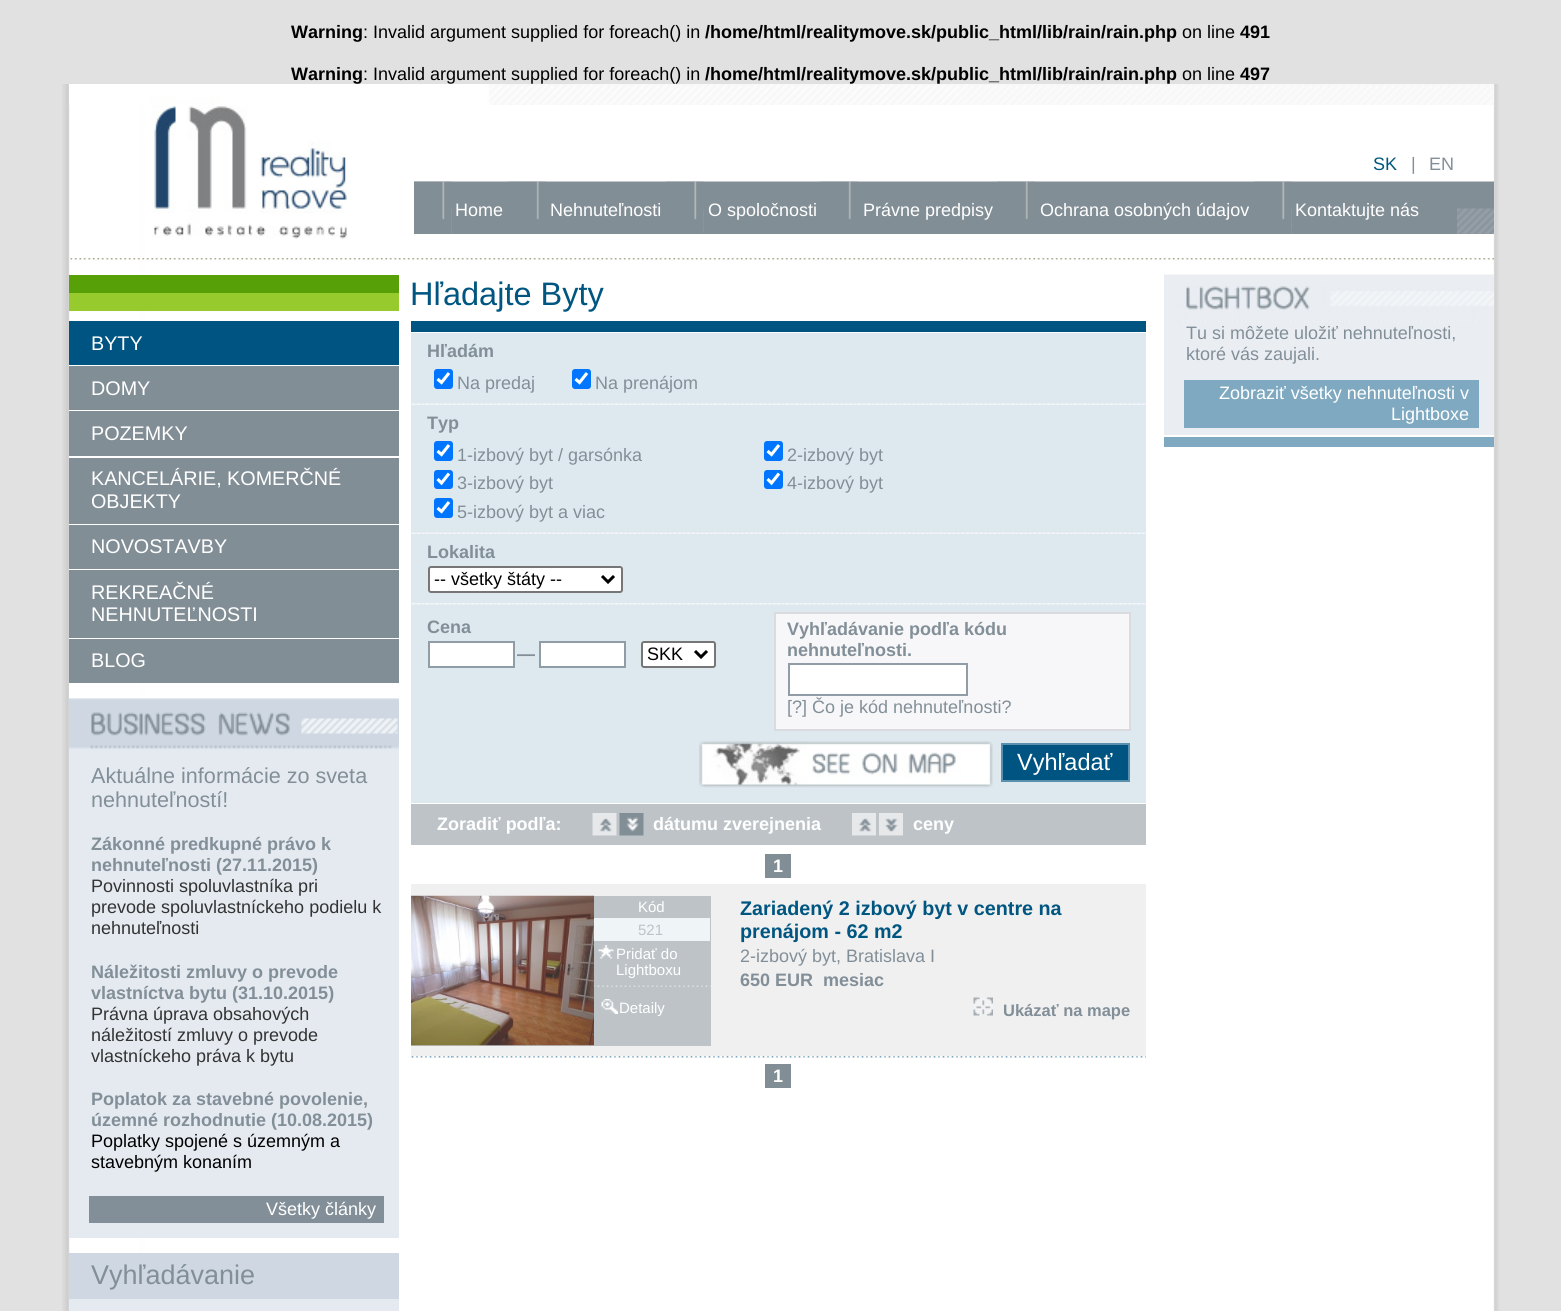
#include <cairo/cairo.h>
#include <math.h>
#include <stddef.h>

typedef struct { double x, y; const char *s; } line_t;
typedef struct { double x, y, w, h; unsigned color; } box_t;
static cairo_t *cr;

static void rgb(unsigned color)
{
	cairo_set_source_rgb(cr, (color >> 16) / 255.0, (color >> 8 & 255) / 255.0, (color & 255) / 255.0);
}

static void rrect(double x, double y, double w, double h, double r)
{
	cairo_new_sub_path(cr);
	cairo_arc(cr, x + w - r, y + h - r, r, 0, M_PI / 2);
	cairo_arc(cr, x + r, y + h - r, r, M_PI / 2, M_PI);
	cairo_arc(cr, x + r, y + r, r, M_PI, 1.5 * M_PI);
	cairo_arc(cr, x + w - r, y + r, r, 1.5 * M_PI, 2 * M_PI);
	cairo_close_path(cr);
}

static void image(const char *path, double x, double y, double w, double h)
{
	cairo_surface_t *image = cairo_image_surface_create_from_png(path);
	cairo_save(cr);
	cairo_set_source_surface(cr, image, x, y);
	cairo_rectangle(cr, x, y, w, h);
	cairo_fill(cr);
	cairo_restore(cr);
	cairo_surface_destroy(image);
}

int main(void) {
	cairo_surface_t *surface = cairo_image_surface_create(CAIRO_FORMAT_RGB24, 1561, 1311);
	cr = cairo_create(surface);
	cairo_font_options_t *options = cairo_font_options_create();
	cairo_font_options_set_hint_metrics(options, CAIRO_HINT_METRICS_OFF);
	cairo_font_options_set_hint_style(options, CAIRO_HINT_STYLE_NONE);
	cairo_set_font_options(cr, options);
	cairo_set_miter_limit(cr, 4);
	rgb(0xe1e1e1);
	cairo_paint(cr);
	image("img/1.png", 62, 84, 1437, 1227);
	image("img/2.png", 69, 84, 1424, 21);
	image("img/3.png", 151, 105, 197, 134);
	image("img/4.png", 414, 181, 1080, 53);
	image("img/5.png", 414, 181, 38, 53);
	rgb(0x828e96);
	cairo_rectangle(cr, 452, 208, 57, 26);
	cairo_fill(cr);
	image("img/6.png", 508, 181, 38, 53);
	cairo_rectangle(cr, 546, 208, 120, 26);
	cairo_fill(cr);
	image("img/7.png", 666, 181, 38, 53);
	cairo_rectangle(cr, 704, 208, 117, 26);
	cairo_fill(cr);
	image("img/6.png", 820, 181, 38, 53);
	cairo_rectangle(cr, 858, 208, 140, 26);
	cairo_fill(cr);
	image("img/6.png", 997, 181, 38, 53);
	cairo_rectangle(cr, 1035, 208, 219, 26);
	cairo_fill(cr);
	image("img/8.png", 1254, 181, 38, 53);
	cairo_rectangle(cr, 1292, 208, 165, 26);
	cairo_fill(cr);
	image("img/9.png", 69, 258, 1425, 2);
	{
		static const box_t items[] = {
			{69, 293, 330, 18, 0x96ca2d},
			{69, 275, 330, 18, 0x57a008},
			{69, 683, 72, 15, 0xffffff},
			{69, 321, 330, 44, 0x005481},
			{69, 365, 72, 1, 0xffffff},
			{69, 366, 330, 44, 0x828e96},
			{69, 410, 72, 1, 0xffffff},
			{69, 411, 330, 45, 0x828e96},
			{69, 456, 72, 2, 0xffffff},
			{69, 458, 330, 66, 0x828e96},
			{69, 524, 72, 1, 0xffffff},
			{69, 525, 330, 44, 0x828e96},
			{69, 569, 72, 1, 0xffffff},
			{69, 570, 330, 68, 0x828e96},
			{69, 638, 72, 1, 0xffffff},
			{69, 639, 330, 44, 0x828e96},
			{69, 698, 330, 540, 0xe5eaf0},
		};
		for (size_t i = 0; i < sizeof items / sizeof *items; i++) {
			rgb(items[i].color);
			cairo_rectangle(cr, items[i].x, items[i].y, items[i].w, items[i].h);
			cairo_fill(cr);
		}
	}
	image("img/10.png", 69, 699, 330, 50);
	{
		static const box_t items[] = {
			{89, 1196, 295, 27, 0x828f98},
			{69, 1253, 330, 46, 0xced7e2},
			{69, 1299, 330, 12, 0xe5eaf0},
			{411, 321, 735, 11, 0x005481},
			{411, 333, 735, 470, 0xdee9ef},
		};
		for (size_t i = 0; i < sizeof items / sizeof *items; i++) {
			rgb(items[i].color);
			cairo_rectangle(cr, items[i].x, items[i].y, items[i].w, items[i].h);
			cairo_fill(cr);
		}
	}
	image("img/11.png", 411, 403, 735, 2);
	rgb(0x0075ff);
	rrect(434, 369, 19, 20, 3);
	cairo_fill(cr);
	cairo_new_path(cr);
	cairo_move_to(cr, 437.5, 379);
	cairo_line_to(cr, 441.5, 382.5);
	cairo_line_to(cr, 449, 373);
	rgb(0xffffff);
	cairo_set_line_width(cr, 3.1);
	cairo_stroke(cr);
	rgb(0x0075ff);
	rrect(572, 369, 19, 20, 3);
	cairo_fill(cr);
	cairo_new_path(cr);
	cairo_move_to(cr, 575.5, 379);
	cairo_line_to(cr, 579.5, 382.5);
	cairo_line_to(cr, 587, 373);
	rgb(0xffffff);
	cairo_stroke(cr);
	image("img/11.png", 411, 532, 735, 2);
	rgb(0x0075ff);
	rrect(434, 441, 19, 20, 3);
	cairo_fill(cr);
	cairo_new_path(cr);
	cairo_move_to(cr, 437.5, 451);
	cairo_line_to(cr, 441.5, 454.5);
	cairo_line_to(cr, 449, 445);
	rgb(0xffffff);
	cairo_stroke(cr);
	rgb(0x0075ff);
	rrect(764, 441, 19, 20, 3);
	cairo_fill(cr);
	cairo_new_path(cr);
	cairo_move_to(cr, 767.5, 451);
	cairo_line_to(cr, 771.5, 454.5);
	cairo_line_to(cr, 779, 445);
	rgb(0xffffff);
	cairo_stroke(cr);
	rgb(0x0075ff);
	rrect(434, 470, 19, 19, 3);
	cairo_fill(cr);
	cairo_new_path(cr);
	cairo_move_to(cr, 437.5, 479);
	cairo_line_to(cr, 441.5, 483);
	cairo_line_to(cr, 449, 473.5);
	rgb(0xffffff);
	cairo_stroke(cr);
	rgb(0x0075ff);
	rrect(764, 470, 19, 19, 3);
	cairo_fill(cr);
	cairo_new_path(cr);
	cairo_move_to(cr, 767.5, 479);
	cairo_line_to(cr, 771.5, 483);
	cairo_line_to(cr, 779, 473.5);
	rgb(0xffffff);
	cairo_stroke(cr);
	rgb(0x0075ff);
	rrect(434, 498, 19, 20, 3);
	cairo_fill(cr);
	cairo_new_path(cr);
	cairo_move_to(cr, 437.5, 508);
	cairo_line_to(cr, 441.5, 511.5);
	cairo_line_to(cr, 449, 502);
	rgb(0xffffff);
	cairo_stroke(cr);
	image("img/12.png", 411, 603, 735, 2);
	rrect(429, 567, 193, 25, 2);
	cairo_fill_preserve(cr);
	rgb(0x767676);
	cairo_set_line_width(cr, 2);
	cairo_stroke(cr);
	cairo_new_path(cr);
	cairo_move_to(cr, 602, 576);
	cairo_line_to(cr, 608, 582);
	cairo_line_to(cr, 614, 576);
	rgb(0x000000);
	cairo_set_line_width(cr, 3);
	cairo_stroke(cr);
	rgb(0xffffff);
	cairo_rectangle(cr, 429, 642, 85, 25);
	cairo_fill_preserve(cr);
	rgb(0x909da6);
	cairo_set_line_width(cr, 2);
	cairo_stroke(cr);
	rgb(0xffffff);
	cairo_rectangle(cr, 540, 642, 85, 25);
	cairo_fill_preserve(cr);
	rgb(0x909da6);
	cairo_stroke(cr);
	rgb(0xffffff);
	rrect(642, 642, 73, 25, 2);
	cairo_fill_preserve(cr);
	rgb(0x767676);
	cairo_stroke(cr);
	cairo_new_path(cr);
	cairo_move_to(cr, 695, 651);
	cairo_line_to(cr, 701, 657);
	cairo_line_to(cr, 707, 651);
	rgb(0x000000);
	cairo_set_line_width(cr, 3);
	cairo_stroke(cr);
	rgb(0xf7f7f9);
	cairo_rectangle(cr, 775, 613, 355, 117);
	cairo_fill_preserve(cr);
	rgb(0xdadbdf);
	cairo_set_line_width(cr, 2);
	cairo_stroke(cr);
	rgb(0xffffff);
	cairo_rectangle(cr, 789, 664, 178, 31);
	cairo_fill_preserve(cr);
	rgb(0x909da6);
	cairo_stroke(cr);
	image("img/13.png", 699, 741, 294, 47);
	rgb(0x005482);
	cairo_rectangle(cr, 1002, 744, 127, 37);
	cairo_fill_preserve(cr);
	rgb(0x5990ae);
	cairo_stroke(cr);
	rgb(0xbdc3c7);
	cairo_rectangle(cr, 411, 804, 735, 41);
	cairo_fill(cr);
	image("img/14.png", 592, 813, 25, 23);
	image("img/15.png", 619, 813, 25, 23);
	image("img/16.png", 852, 813, 24, 23);
	image("img/17.png", 879, 813, 24, 23);
	rgb(0x828e96);
	cairo_rectangle(cr, 765, 854, 26, 24);
	cairo_fill(cr);
	rgb(0xf0f0f0);
	cairo_rectangle(cr, 411, 884, 735, 174);
	cairo_fill(cr);
	image("img/18.png", 411, 1056, 735, 2);
	rgb(0xbdc3c7);
	cairo_rectangle(cr, 411, 896, 300, 150);
	cairo_fill(cr);
	image("img/19.png", 411, 895, 183, 151);
	rgb(0xeff4f7);
	cairo_rectangle(cr, 594, 918, 116, 23);
	cairo_fill(cr);
	image("img/20.png", 594, 985, 117, 2);
	image("img/21.png", 598, 945, 16, 14);
	image("img/22.png", 601, 999, 17, 15);
	image("img/23.png", 973, 997, 20, 19);
	rgb(0x828e96);
	cairo_rectangle(cr, 765, 1064, 26, 24);
	cairo_fill(cr);
	rgb(0xeaeef3);
	cairo_rectangle(cr, 1164, 322, 330, 113);
	cairo_fill(cr);
	image("img/24.png", 1164, 274, 330, 48);
	rgb(0x7fa9c0);
	cairo_rectangle(cr, 1184, 380, 295, 48);
	cairo_fill(cr);
	cairo_rectangle(cr, 1164, 437, 330, 10);
	cairo_fill(cr);
	cairo_select_font_face(cr, "Liberation Sans", CAIRO_FONT_SLANT_NORMAL, CAIRO_FONT_WEIGHT_BOLD);
	cairo_set_font_size(cr, 18);
	rgb(0x000000);
	cairo_move_to(cr, 291, 38);
	cairo_show_text(cr, "Warning");
	cairo_select_font_face(cr, "Liberation Sans", CAIRO_FONT_SLANT_NORMAL, CAIRO_FONT_WEIGHT_NORMAL);
	cairo_move_to(cr, 363, 38);
	cairo_show_text(cr, ": Invalid argument supplied for foreach() in");
	cairo_select_font_face(cr, "Liberation Sans", CAIRO_FONT_SLANT_NORMAL, CAIRO_FONT_WEIGHT_BOLD);
	cairo_move_to(cr, 705, 38);
	cairo_show_text(cr, "/home/html/realitymove.sk/public_html/lib/rain/rain.php");
	cairo_select_font_face(cr, "Liberation Sans", CAIRO_FONT_SLANT_NORMAL, CAIRO_FONT_WEIGHT_NORMAL);
	cairo_move_to(cr, 1182, 38);
	cairo_show_text(cr, "on line");
	cairo_select_font_face(cr, "Liberation Sans", CAIRO_FONT_SLANT_NORMAL, CAIRO_FONT_WEIGHT_BOLD);
	cairo_move_to(cr, 1240, 38);
	cairo_show_text(cr, "491");
	cairo_move_to(cr, 291, 80);
	cairo_show_text(cr, "Warning");
	cairo_select_font_face(cr, "Liberation Sans", CAIRO_FONT_SLANT_NORMAL, CAIRO_FONT_WEIGHT_NORMAL);
	cairo_move_to(cr, 363, 80);
	cairo_show_text(cr, ": Invalid argument supplied for foreach() in");
	cairo_select_font_face(cr, "Liberation Sans", CAIRO_FONT_SLANT_NORMAL, CAIRO_FONT_WEIGHT_BOLD);
	cairo_move_to(cr, 705, 80);
	cairo_show_text(cr, "/home/html/realitymove.sk/public_html/lib/rain/rain.php");
	cairo_select_font_face(cr, "Liberation Sans", CAIRO_FONT_SLANT_NORMAL, CAIRO_FONT_WEIGHT_NORMAL);
	cairo_move_to(cr, 1182, 80);
	cairo_show_text(cr, "on line");
	cairo_select_font_face(cr, "Liberation Sans", CAIRO_FONT_SLANT_NORMAL, CAIRO_FONT_WEIGHT_BOLD);
	cairo_move_to(cr, 1240, 80);
	cairo_show_text(cr, "497");
	cairo_select_font_face(cr, "Liberation Sans", CAIRO_FONT_SLANT_NORMAL, CAIRO_FONT_WEIGHT_NORMAL);
	rgb(0x005680);
	cairo_move_to(cr, 1373, 170);
	cairo_show_text(cr, "SK");
	rgb(0x828f98);
	cairo_move_to(cr, 1411, 170);
	cairo_show_text(cr, "|");
	cairo_move_to(cr, 1429, 170);
	cairo_show_text(cr, "EN");
	rgb(0xffffff);
	{
		static const line_t items[] = {
			{455, 216, "Home"},
			{550, 216, "Nehnuteľnosti"},
			{708, 216, "O spoločnosti"},
			{863, 216, "Právne predpisy"},
			{1040, 216, "Ochrana osobných údajov"},
			{1295, 216, "Kontaktujte nás"},
		};
		for (size_t i = 0; i < sizeof items / sizeof *items; i++) {
			cairo_move_to(cr, items[i].x, items[i].y);
			cairo_show_text(cr, items[i].s);
		}
	}
	cairo_set_font_size(cr, 19.75);
	{
		static const line_t items[] = {
			{91, 350, "BYTY"},
			{91, 395, "DOMY"},
			{91, 440, "POZEMKY"},
			{91, 485, "KANCELÁRIE, KOMERČNÉ"},
			{91, 508, "OBJEKTY"},
			{91, 553, "NOVOSTAVBY"},
			{91, 599, "REKREAČNÉ"},
			{91, 621, "NEHNUTEĽNOSTI"},
			{91, 667, "BLOG"},
		};
		for (size_t i = 0; i < sizeof items / sizeof *items; i++) {
			cairo_move_to(cr, items[i].x, items[i].y);
			cairo_show_text(cr, items[i].s);
		}
	}
	cairo_set_font_size(cr, 21.6);
	rgb(0x828f98);
	cairo_move_to(cr, 91, 783);
	cairo_show_text(cr, "Aktuálne informácie zo sveta");
	cairo_move_to(cr, 91, 807);
	cairo_show_text(cr, "nehnuteľností!");
	cairo_select_font_face(cr, "Liberation Sans", CAIRO_FONT_SLANT_NORMAL, CAIRO_FONT_WEIGHT_BOLD);
	cairo_set_font_size(cr, 18);
	cairo_move_to(cr, 91, 850);
	cairo_show_text(cr, "Zákonné predkupné právo k");
	cairo_move_to(cr, 91, 871);
	cairo_show_text(cr, "nehnuteľnosti (27.11.2015)");
	cairo_select_font_face(cr, "Liberation Sans", CAIRO_FONT_SLANT_NORMAL, CAIRO_FONT_WEIGHT_NORMAL);
	rgb(0x333333);
	{
		static const line_t items[] = {
			{91, 892, "Povinnosti spoluvlastníka pri"},
			{91, 913, "prevode spoluvlastníckeho podielu k"},
			{91, 934, "nehnuteľnosti"},
		};
		for (size_t i = 0; i < sizeof items / sizeof *items; i++) {
			cairo_move_to(cr, items[i].x, items[i].y);
			cairo_show_text(cr, items[i].s);
		}
	}
	cairo_select_font_face(cr, "Liberation Sans", CAIRO_FONT_SLANT_NORMAL, CAIRO_FONT_WEIGHT_BOLD);
	rgb(0x828f98);
	cairo_move_to(cr, 91, 978);
	cairo_show_text(cr, "Náležitosti zmluvy o prevode");
	cairo_move_to(cr, 91, 999);
	cairo_show_text(cr, "vlastníctva bytu (31.10.2015)");
	cairo_select_font_face(cr, "Liberation Sans", CAIRO_FONT_SLANT_NORMAL, CAIRO_FONT_WEIGHT_NORMAL);
	rgb(0x333333);
	{
		static const line_t items[] = {
			{91, 1020, "Právna úprava obsahových"},
			{91, 1041, "náležitostí zmluvy o prevode"},
			{91, 1062, "vlastníckeho práva k bytu"},
		};
		for (size_t i = 0; i < sizeof items / sizeof *items; i++) {
			cairo_move_to(cr, items[i].x, items[i].y);
			cairo_show_text(cr, items[i].s);
		}
	}
	cairo_select_font_face(cr, "Liberation Sans", CAIRO_FONT_SLANT_NORMAL, CAIRO_FONT_WEIGHT_BOLD);
	rgb(0x828f98);
	cairo_move_to(cr, 91, 1105);
	cairo_show_text(cr, "Poplatok za stavebné povolenie,");
	cairo_move_to(cr, 91, 1126);
	cairo_show_text(cr, "územné rozhodnutie (10.08.2015)");
	cairo_select_font_face(cr, "Liberation Sans", CAIRO_FONT_SLANT_NORMAL, CAIRO_FONT_WEIGHT_NORMAL);
	rgb(0x000000);
	cairo_move_to(cr, 91, 1147);
	cairo_show_text(cr, "Poplatky spojené s územným a");
	cairo_move_to(cr, 91, 1168);
	cairo_show_text(cr, "stavebným konaním");
	rgb(0xffffff);
	cairo_move_to(cr, 266, 1215);
	cairo_show_text(cr, "Všetky články");
	cairo_set_font_size(cr, 27);
	rgb(0x828f98);
	cairo_move_to(cr, 91, 1284);
	cairo_show_text(cr, "Vyhľadávanie");
	cairo_set_font_size(cr, 32.5);
	rgb(0x005680);
	cairo_move_to(cr, 410, 305);
	cairo_show_text(cr, "Hľadajte Byty");
	cairo_select_font_face(cr, "Liberation Sans", CAIRO_FONT_SLANT_NORMAL, CAIRO_FONT_WEIGHT_BOLD);
	cairo_set_font_size(cr, 18);
	rgb(0x828f98);
	cairo_move_to(cr, 427, 357);
	cairo_show_text(cr, "Hľadám");
	cairo_select_font_face(cr, "Liberation Sans", CAIRO_FONT_SLANT_NORMAL, CAIRO_FONT_WEIGHT_NORMAL);
	cairo_move_to(cr, 457, 389);
	cairo_show_text(cr, "Na predaj");
	cairo_move_to(cr, 595, 389);
	cairo_show_text(cr, "Na prenájom");
	cairo_select_font_face(cr, "Liberation Sans", CAIRO_FONT_SLANT_NORMAL, CAIRO_FONT_WEIGHT_BOLD);
	cairo_move_to(cr, 427, 429);
	cairo_show_text(cr, "Typ");
	cairo_select_font_face(cr, "Liberation Sans", CAIRO_FONT_SLANT_NORMAL, CAIRO_FONT_WEIGHT_NORMAL);
	{
		static const line_t items[] = {
			{457, 461, "1-izbový byt / garsónka"},
			{787, 461, "2-izbový byt"},
			{457, 489, "3-izbový byt"},
			{787, 489, "4-izbový byt"},
			{457, 518, "5-izbový byt a viac"},
		};
		for (size_t i = 0; i < sizeof items / sizeof *items; i++) {
			cairo_move_to(cr, items[i].x, items[i].y);
			cairo_show_text(cr, items[i].s);
		}
	}
	cairo_select_font_face(cr, "Liberation Sans", CAIRO_FONT_SLANT_NORMAL, CAIRO_FONT_WEIGHT_BOLD);
	cairo_move_to(cr, 427, 558);
	cairo_show_text(cr, "Lokalita");
	cairo_select_font_face(cr, "Liberation Sans", CAIRO_FONT_SLANT_NORMAL, CAIRO_FONT_WEIGHT_NORMAL);
	rgb(0x000000);
	cairo_move_to(cr, 434, 585);
	cairo_show_text(cr, "-- všetky štáty --");
	cairo_select_font_face(cr, "Liberation Sans", CAIRO_FONT_SLANT_NORMAL, CAIRO_FONT_WEIGHT_BOLD);
	rgb(0x828f98);
	cairo_move_to(cr, 427, 633);
	cairo_show_text(cr, "Cena");
	cairo_move_to(cr, 517, 660);
	cairo_show_text(cr, "—");
	cairo_select_font_face(cr, "Liberation Sans", CAIRO_FONT_SLANT_NORMAL, CAIRO_FONT_WEIGHT_NORMAL);
	rgb(0x000000);
	cairo_move_to(cr, 647, 660);
	cairo_show_text(cr, "SKK");
	cairo_select_font_face(cr, "Liberation Sans", CAIRO_FONT_SLANT_NORMAL, CAIRO_FONT_WEIGHT_BOLD);
	rgb(0x828f98);
	cairo_move_to(cr, 787, 635);
	cairo_show_text(cr, "Vyhľadávanie podľa kódu");
	cairo_move_to(cr, 787, 656);
	cairo_show_text(cr, "nehnuteľnosti.");
	cairo_select_font_face(cr, "Liberation Sans", CAIRO_FONT_SLANT_NORMAL, CAIRO_FONT_WEIGHT_NORMAL);
	cairo_move_to(cr, 787, 713);
	cairo_show_text(cr, "[?] Čo je kód nehnuteľnosti?");
	cairo_set_font_size(cr, 23.5);
	rgb(0xffffff);
	cairo_move_to(cr, 1017, 770);
	cairo_show_text(cr, "Vyhľadať");
	cairo_select_font_face(cr, "Liberation Sans", CAIRO_FONT_SLANT_NORMAL, CAIRO_FONT_WEIGHT_BOLD);
	cairo_set_font_size(cr, 18);
	{
		static const line_t items[] = {
			{437, 830, "Zoradiť podľa:"},
			{653, 830, "dátumu zverejnenia"},
			{913, 830, "ceny"},
			{773, 872, "1"},
		};
		for (size_t i = 0; i < sizeof items / sizeof *items; i++) {
			cairo_move_to(cr, items[i].x, items[i].y);
			cairo_show_text(cr, items[i].s);
		}
	}
	cairo_select_font_face(cr, "Liberation Sans", CAIRO_FONT_SLANT_NORMAL, CAIRO_FONT_WEIGHT_NORMAL);
	cairo_set_font_size(cr, 15);
	cairo_move_to(cr, 638, 912);
	cairo_show_text(cr, "Kód");
	rgb(0xbdc3c7);
	cairo_move_to(cr, 638, 935);
	cairo_show_text(cr, "521");
	rgb(0xffffff);
	{
		static const line_t items[] = {
			{616, 959, "Pridať do"},
			{616, 975, "Lightboxu"},
			{619, 1013, "Detaily"},
		};
		for (size_t i = 0; i < sizeof items / sizeof *items; i++) {
			cairo_move_to(cr, items[i].x, items[i].y);
			cairo_show_text(cr, items[i].s);
		}
	}
	cairo_select_font_face(cr, "Liberation Sans", CAIRO_FONT_SLANT_NORMAL, CAIRO_FONT_WEIGHT_BOLD);
	cairo_set_font_size(cr, 19.75);
	rgb(0x005680);
	cairo_move_to(cr, 740, 915);
	cairo_show_text(cr, "Zariadený 2 izbový byt v centre na");
	cairo_move_to(cr, 740, 938);
	cairo_show_text(cr, "prenájom - 62 m2");
	cairo_select_font_face(cr, "Liberation Sans", CAIRO_FONT_SLANT_NORMAL, CAIRO_FONT_WEIGHT_NORMAL);
	cairo_set_font_size(cr, 18);
	rgb(0x828f98);
	cairo_move_to(cr, 740, 962);
	cairo_show_text(cr, "2-izbový byt, Bratislava I");
	cairo_select_font_face(cr, "Liberation Sans", CAIRO_FONT_SLANT_NORMAL, CAIRO_FONT_WEIGHT_BOLD);
	cairo_move_to(cr, 740, 986);
	cairo_show_text(cr, "650 EUR");
	cairo_move_to(cr, 823, 986);
	cairo_show_text(cr, "mesiac");
	cairo_set_font_size(cr, 16.5);
	cairo_move_to(cr, 1003, 1016);
	cairo_show_text(cr, "Ukázať na mape");
	cairo_set_font_size(cr, 18);
	rgb(0xffffff);
	cairo_move_to(cr, 773, 1082);
	cairo_show_text(cr, "1");
	cairo_select_font_face(cr, "Liberation Sans", CAIRO_FONT_SLANT_NORMAL, CAIRO_FONT_WEIGHT_NORMAL);
	rgb(0x828f98);
	cairo_move_to(cr, 1186, 339);
	cairo_show_text(cr, "Tu si môžete uložiť nehnuteľnosti,");
	cairo_move_to(cr, 1186, 360);
	cairo_show_text(cr, "ktoré vás zaujali.");
	rgb(0xffffff);
	cairo_move_to(cr, 1219, 399);
	cairo_show_text(cr, "Zobraziť všetky nehnuteľnosti v");
	cairo_move_to(cr, 1391, 420);
	cairo_show_text(cr, "Lightboxe");
	cairo_surface_write_to_png(surface, "page.png");
	cairo_font_options_destroy(options);
	cairo_destroy(cr);
	cairo_surface_destroy(surface);
	return 0;
}
